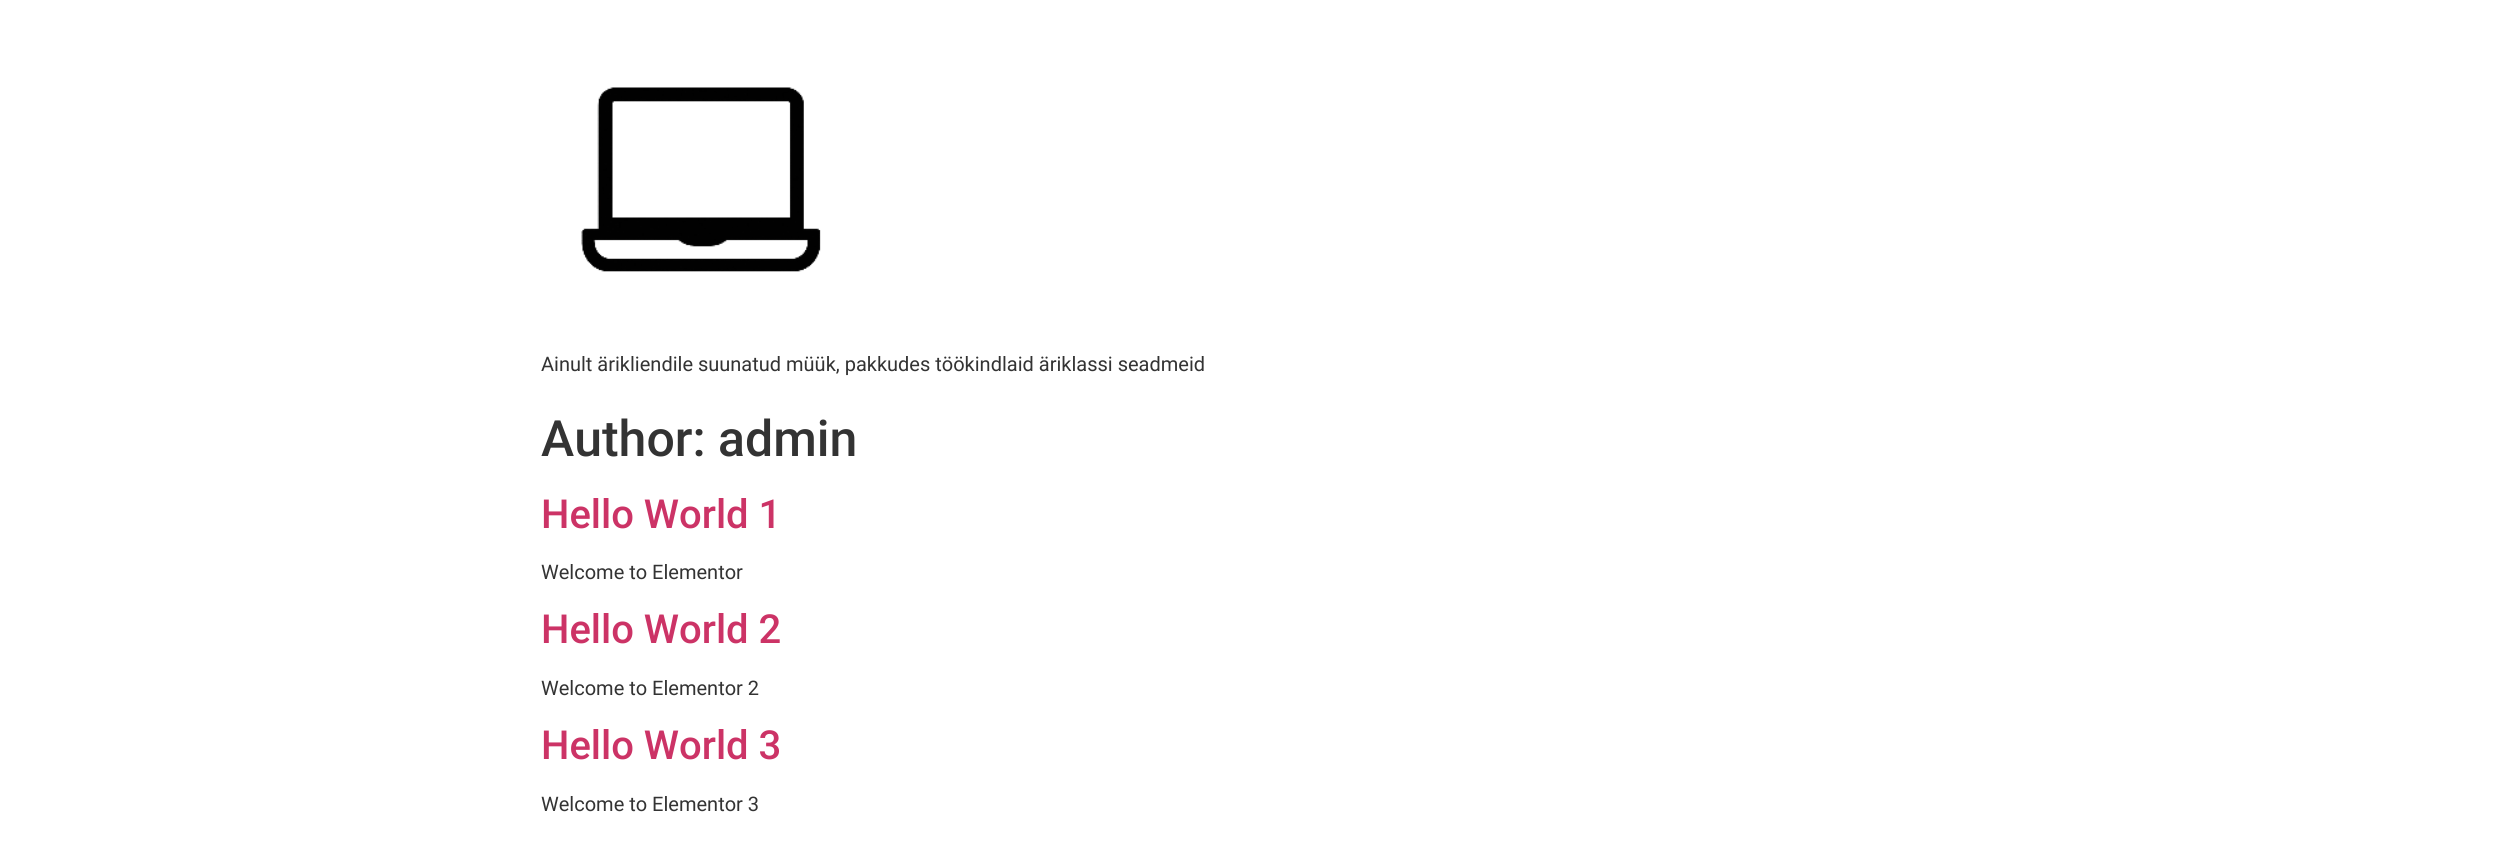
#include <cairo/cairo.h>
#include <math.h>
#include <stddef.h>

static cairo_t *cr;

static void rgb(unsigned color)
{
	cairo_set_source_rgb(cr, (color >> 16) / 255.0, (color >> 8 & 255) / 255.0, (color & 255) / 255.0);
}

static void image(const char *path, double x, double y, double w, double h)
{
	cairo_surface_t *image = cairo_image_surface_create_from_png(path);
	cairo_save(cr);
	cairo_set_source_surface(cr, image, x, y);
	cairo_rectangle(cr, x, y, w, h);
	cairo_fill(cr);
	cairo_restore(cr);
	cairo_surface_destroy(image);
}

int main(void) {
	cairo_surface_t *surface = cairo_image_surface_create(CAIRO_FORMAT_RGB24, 2506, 859);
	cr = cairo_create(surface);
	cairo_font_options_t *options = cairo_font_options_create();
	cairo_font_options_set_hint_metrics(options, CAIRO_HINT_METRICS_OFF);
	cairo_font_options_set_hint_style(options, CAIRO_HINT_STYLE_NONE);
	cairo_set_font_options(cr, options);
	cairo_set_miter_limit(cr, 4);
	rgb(0xffffff);
	cairo_paint(cr);
	image("img/1.png", 581, 87, 240, 185);
	cairo_select_font_face(cr, "Roboto", CAIRO_FONT_SLANT_NORMAL, CAIRO_FONT_WEIGHT_NORMAL);
	cairo_set_font_size(cr, 20);
	rgb(0x333333);
	cairo_move_to(cr, 541, 371);
	cairo_show_text(cr, "Ainult ärikliendile suunatud müük, pakkudes töökindlaid äriklassi seadmeid");
	cairo_select_font_face(cr, "Roboto Medium", CAIRO_FONT_SLANT_NORMAL, CAIRO_FONT_WEIGHT_NORMAL);
	cairo_set_font_size(cr, 50);
	cairo_move_to(cr, 541, 456);
	cairo_show_text(cr, "Author: admin");
	cairo_set_font_size(cr, 40);
	rgb(0xcc3366);
	cairo_move_to(cr, 541, 528);
	cairo_show_text(cr, "Hello World 1");
	cairo_select_font_face(cr, "Roboto", CAIRO_FONT_SLANT_NORMAL, CAIRO_FONT_WEIGHT_NORMAL);
	cairo_set_font_size(cr, 20);
	rgb(0x333333);
	cairo_move_to(cr, 541, 579);
	cairo_show_text(cr, "Welcome to Elementor");
	cairo_select_font_face(cr, "Roboto Medium", CAIRO_FONT_SLANT_NORMAL, CAIRO_FONT_WEIGHT_NORMAL);
	cairo_set_font_size(cr, 40);
	rgb(0xcc3366);
	cairo_move_to(cr, 541, 643);
	cairo_show_text(cr, "Hello World 2");
	cairo_select_font_face(cr, "Roboto", CAIRO_FONT_SLANT_NORMAL, CAIRO_FONT_WEIGHT_NORMAL);
	cairo_set_font_size(cr, 20);
	rgb(0x333333);
	cairo_move_to(cr, 541, 695);
	cairo_show_text(cr, "Welcome to Elementor 2");
	cairo_select_font_face(cr, "Roboto Medium", CAIRO_FONT_SLANT_NORMAL, CAIRO_FONT_WEIGHT_NORMAL);
	cairo_set_font_size(cr, 40);
	rgb(0xcc3366);
	cairo_move_to(cr, 541, 759);
	cairo_show_text(cr, "Hello World 3");
	cairo_select_font_face(cr, "Roboto", CAIRO_FONT_SLANT_NORMAL, CAIRO_FONT_WEIGHT_NORMAL);
	cairo_set_font_size(cr, 20);
	rgb(0x333333);
	cairo_move_to(cr, 541, 811);
	cairo_show_text(cr, "Welcome to Elementor 3");
	cairo_surface_write_to_png(surface, "page.png");
	cairo_font_options_destroy(options);
	cairo_destroy(cr);
	cairo_surface_destroy(surface);
	return 0;
}
